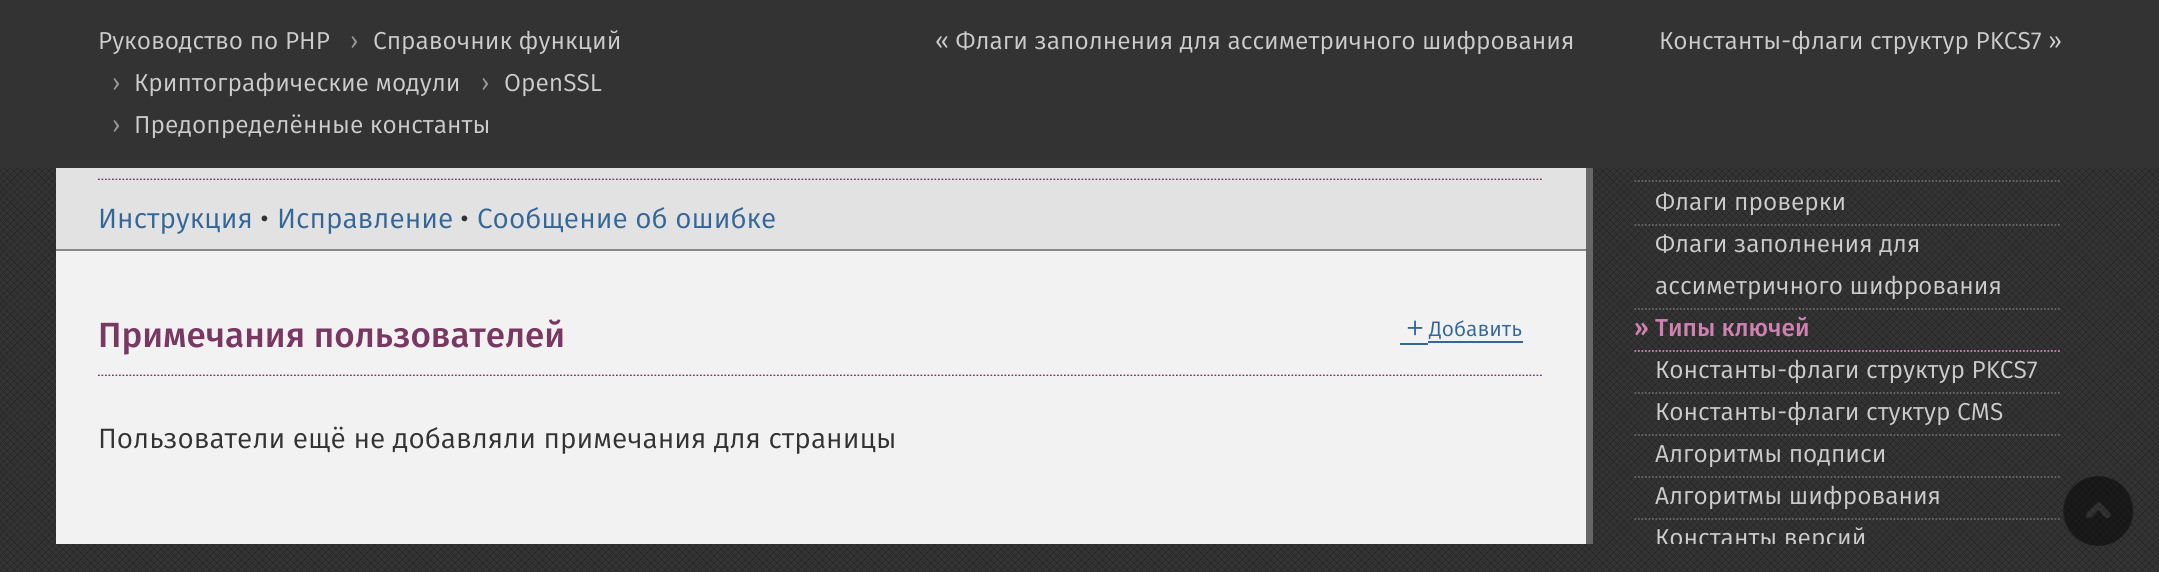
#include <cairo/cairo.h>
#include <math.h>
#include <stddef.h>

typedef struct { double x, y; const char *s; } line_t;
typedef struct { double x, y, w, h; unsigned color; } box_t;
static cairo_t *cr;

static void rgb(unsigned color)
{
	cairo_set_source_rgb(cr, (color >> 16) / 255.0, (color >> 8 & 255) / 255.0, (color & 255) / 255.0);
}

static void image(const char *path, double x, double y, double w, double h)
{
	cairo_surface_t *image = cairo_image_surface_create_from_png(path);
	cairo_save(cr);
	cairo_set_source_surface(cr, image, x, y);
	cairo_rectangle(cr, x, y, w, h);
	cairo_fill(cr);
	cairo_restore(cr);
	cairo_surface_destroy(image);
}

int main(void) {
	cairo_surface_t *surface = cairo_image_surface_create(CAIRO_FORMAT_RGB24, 2159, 572);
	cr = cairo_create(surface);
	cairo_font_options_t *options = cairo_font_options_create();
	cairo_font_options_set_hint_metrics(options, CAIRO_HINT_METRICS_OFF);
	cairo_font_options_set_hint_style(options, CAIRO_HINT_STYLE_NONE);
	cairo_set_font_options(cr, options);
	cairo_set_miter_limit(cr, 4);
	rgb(0x333333);
	cairo_paint(cr);
	image("img/1.png", 0, 168, 2159, 404);
	{
		static const box_t items[] = {
			{56, 251, 1530, 293, 0xf2f2f2},
			{1586, 168, 7, 376, 0x666666},
			{56, 168, 1530, 81, 0xe2e2e2},
			{56, 249, 1530, 2, 0x888888},
		};
		for (size_t i = 0; i < sizeof items / sizeof *items; i++) {
			rgb(items[i].color);
			cairo_rectangle(cr, items[i].x, items[i].y, items[i].w, items[i].h);
			cairo_fill(cr);
		}
	}
	cairo_save(cr);
	cairo_rectangle(cr, 98, 96, 1446, 84);
	cairo_clip(cr);
	cairo_new_path(cr);
	cairo_move_to(cr, 98, 179.5);
	cairo_line_to(cr, 1543.5, 179.5);
	rgb(0x793862);
	cairo_set_line_width(cr, 1.8);
	cairo_set_dash(cr, (double[]){1.75, 1.75}, 2, 0);
	cairo_stroke(cr);
	cairo_restore(cr);
	cairo_save(cr);
	cairo_rectangle(cr, 98, 292, 1446, 84);
	cairo_clip(cr);
	cairo_new_path(cr);
	cairo_move_to(cr, 98, 375.5);
	cairo_line_to(cr, 1543.5, 375.5);
	rgb(0x793862);
	cairo_set_line_width(cr, 1.8);
	cairo_set_dash(cr, (double[]){1.75, 1.75}, 2, 0);
	cairo_stroke(cr);
	cairo_restore(cr);
	rgb(0x336699);
	cairo_rectangle(cr, 1400, 343, 28, 2);
	cairo_fill(cr);
	cairo_rectangle(cr, 1428, 341, 95, 2);
	cairo_fill(cr);
	cairo_new_path(cr);
	cairo_move_to(cr, 1634.5, 181);
	cairo_line_to(cr, 2061.5, 181);
	rgb(0x666666);
	cairo_set_line_width(cr, 1.8);
	cairo_set_dash(cr, (double[]){1.75, 1.75}, 2, 0);
	cairo_stroke(cr);
	cairo_new_path(cr);
	cairo_move_to(cr, 1634.5, 225);
	cairo_line_to(cr, 2061.5, 225);
	cairo_stroke(cr);
	cairo_new_path(cr);
	cairo_move_to(cr, 1634.5, 309);
	cairo_line_to(cr, 2061.5, 309);
	cairo_stroke(cr);
	cairo_new_path(cr);
	cairo_move_to(cr, 1634.5, 351);
	cairo_line_to(cr, 2061.5, 351);
	rgb(0xcf82b1);
	cairo_stroke(cr);
	cairo_new_path(cr);
	cairo_move_to(cr, 1634.5, 393);
	cairo_line_to(cr, 2061.5, 393);
	rgb(0x666666);
	cairo_stroke(cr);
	cairo_new_path(cr);
	cairo_move_to(cr, 1634.5, 435);
	cairo_line_to(cr, 2061.5, 435);
	cairo_stroke(cr);
	cairo_new_path(cr);
	cairo_move_to(cr, 1634.5, 477);
	cairo_line_to(cr, 2061.5, 477);
	cairo_stroke(cr);
	cairo_new_path(cr);
	cairo_move_to(cr, 1634.5, 519);
	cairo_line_to(cr, 2061.5, 519);
	cairo_stroke(cr);
	image("img/2.png", 2063, 476, 71, 70);
	cairo_select_font_face(cr, "Fira Sans", CAIRO_FONT_SLANT_NORMAL, CAIRO_FONT_WEIGHT_NORMAL);
	cairo_set_font_size(cr, 24.5);
	rgb(0xcccccc);
	cairo_move_to(cr, 98, 49);
	cairo_show_text(cr, "Руководство по PHP");
	rgb(0x999999);
	cairo_move_to(cr, 350, 49);
	cairo_show_text(cr, "›");
	rgb(0xcccccc);
	cairo_move_to(cr, 373, 49);
	cairo_show_text(cr, "Справочник функций");
	rgb(0x999999);
	cairo_move_to(cr, 112, 91);
	cairo_show_text(cr, "›");
	rgb(0xcccccc);
	cairo_move_to(cr, 134, 91);
	cairo_show_text(cr, "Криптографические модули");
	rgb(0x999999);
	cairo_move_to(cr, 481, 91);
	cairo_show_text(cr, "›");
	rgb(0xcccccc);
	cairo_move_to(cr, 504, 91);
	cairo_show_text(cr, "OpenSSL");
	rgb(0x999999);
	cairo_move_to(cr, 112, 133);
	cairo_show_text(cr, "›");
	rgb(0xcccccc);
	{
		static const line_t items[] = {
			{134, 133, "Предопределённые константы"},
			{935, 49, "« Флаги заполнения для ассиметричного шифрования"},
			{1659, 49, "Константы-флаги структур PKCS7 »"},
		};
		for (size_t i = 0; i < sizeof items / sizeof *items; i++) {
			cairo_move_to(cr, items[i].x, items[i].y);
			cairo_show_text(cr, items[i].s);
		}
	}
	cairo_set_font_size(cr, 28);
	rgb(0x336699);
	cairo_move_to(cr, 98, 228);
	cairo_show_text(cr, "Инструкция");
	rgb(0x333333);
	cairo_move_to(cr, 260, 228);
	cairo_show_text(cr, "•");
	rgb(0x336699);
	cairo_move_to(cr, 277, 228);
	cairo_show_text(cr, "Исправление");
	rgb(0x333333);
	cairo_move_to(cr, 460, 228);
	cairo_show_text(cr, "•");
	rgb(0x336699);
	cairo_move_to(cr, 477, 228);
	cairo_show_text(cr, "Сообщение об ошибке");
	cairo_select_font_face(cr, "Fira Sans Medium", CAIRO_FONT_SLANT_NORMAL, CAIRO_FONT_WEIGHT_NORMAL);
	cairo_set_font_size(cr, 35);
	rgb(0x793862);
	cairo_move_to(cr, 98, 347);
	cairo_show_text(cr, "Примечания пользователей");
	cairo_select_font_face(cr, "WenQuanYi Zen Hei Medium", CAIRO_FONT_SLANT_NORMAL, CAIRO_FONT_WEIGHT_NORMAL);
	cairo_set_font_size(cr, 28);
	rgb(0x336699);
	cairo_move_to(cr, 1401, 336);
	cairo_show_text(cr, "＋");
	cairo_select_font_face(cr, "Fira Sans", CAIRO_FONT_SLANT_NORMAL, CAIRO_FONT_WEIGHT_NORMAL);
	cairo_set_font_size(cr, 21);
	cairo_move_to(cr, 1429, 336);
	cairo_show_text(cr, "Добавить");
	cairo_set_font_size(cr, 28);
	rgb(0x333333);
	cairo_move_to(cr, 98, 448);
	cairo_show_text(cr, "Пользователи ещё не добавляли примечания для страницы");
	cairo_set_font_size(cr, 24.5);
	rgb(0xcccccc);
	{
		static const line_t items[] = {
			{1655, 210, "Флаги проверки"},
			{1655, 252, "Флаги заполнения для"},
			{1655, 294, "ассиметричного шифрования"},
		};
		for (size_t i = 0; i < sizeof items / sizeof *items; i++) {
			cairo_move_to(cr, items[i].x, items[i].y);
			cairo_show_text(cr, items[i].s);
		}
	}
	cairo_select_font_face(cr, "Fira Sans Medium", CAIRO_FONT_SLANT_NORMAL, CAIRO_FONT_WEIGHT_NORMAL);
	rgb(0xcf82b1);
	cairo_move_to(cr, 1634, 336);
	cairo_show_text(cr, "»");
	cairo_move_to(cr, 1655, 336);
	cairo_show_text(cr, "Типы ключей");
	cairo_select_font_face(cr, "Fira Sans", CAIRO_FONT_SLANT_NORMAL, CAIRO_FONT_WEIGHT_NORMAL);
	rgb(0xcccccc);
	{
		static const line_t items[] = {
			{1655, 378, "Константы-флаги структур PKCS7"},
			{1655, 420, "Константы-флаги стуктур CMS"},
			{1655, 462, "Алгоритмы подписи"},
			{1655, 504, "Алгоритмы шифрования"},
		};
		for (size_t i = 0; i < sizeof items / sizeof *items; i++) {
			cairo_move_to(cr, items[i].x, items[i].y);
			cairo_show_text(cr, items[i].s);
		}
	}
	cairo_save(cr);
	cairo_rectangle(cr, 1593, 56, 511, 488);
	cairo_clip(cr);
	cairo_move_to(cr, 1655, 546);
	cairo_show_text(cr, "Константы версий");
	cairo_restore(cr);
	cairo_surface_write_to_png(surface, "page.png");
	cairo_font_options_destroy(options);
	cairo_destroy(cr);
	cairo_surface_destroy(surface);
	return 0;
}
